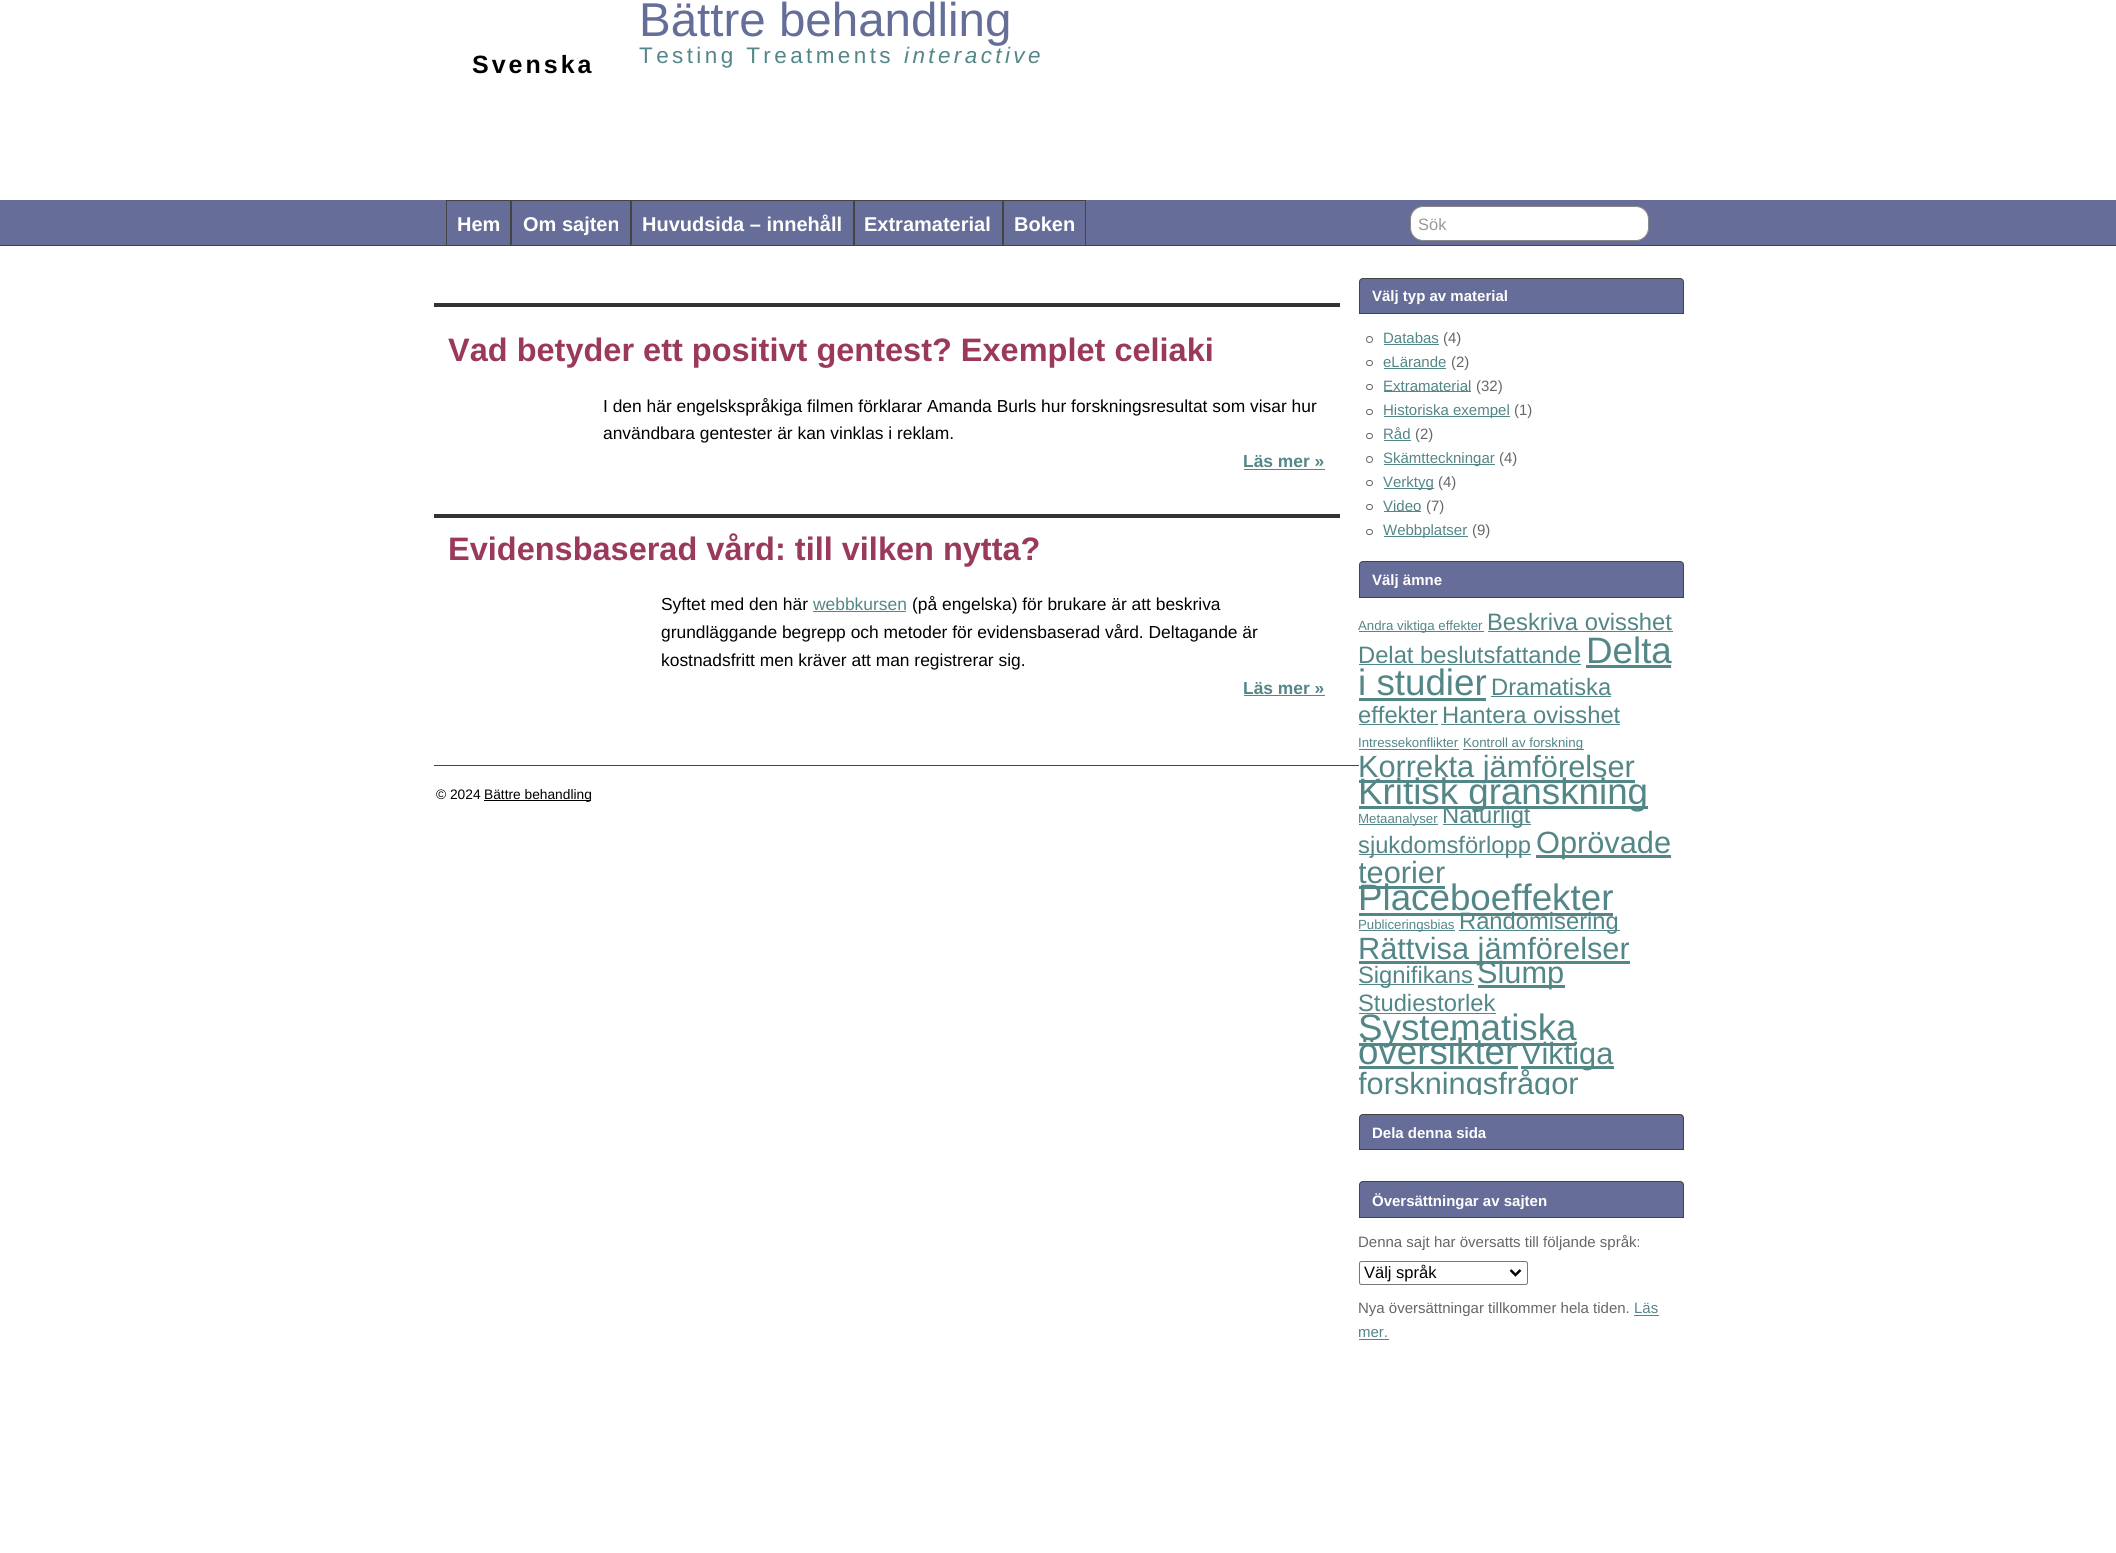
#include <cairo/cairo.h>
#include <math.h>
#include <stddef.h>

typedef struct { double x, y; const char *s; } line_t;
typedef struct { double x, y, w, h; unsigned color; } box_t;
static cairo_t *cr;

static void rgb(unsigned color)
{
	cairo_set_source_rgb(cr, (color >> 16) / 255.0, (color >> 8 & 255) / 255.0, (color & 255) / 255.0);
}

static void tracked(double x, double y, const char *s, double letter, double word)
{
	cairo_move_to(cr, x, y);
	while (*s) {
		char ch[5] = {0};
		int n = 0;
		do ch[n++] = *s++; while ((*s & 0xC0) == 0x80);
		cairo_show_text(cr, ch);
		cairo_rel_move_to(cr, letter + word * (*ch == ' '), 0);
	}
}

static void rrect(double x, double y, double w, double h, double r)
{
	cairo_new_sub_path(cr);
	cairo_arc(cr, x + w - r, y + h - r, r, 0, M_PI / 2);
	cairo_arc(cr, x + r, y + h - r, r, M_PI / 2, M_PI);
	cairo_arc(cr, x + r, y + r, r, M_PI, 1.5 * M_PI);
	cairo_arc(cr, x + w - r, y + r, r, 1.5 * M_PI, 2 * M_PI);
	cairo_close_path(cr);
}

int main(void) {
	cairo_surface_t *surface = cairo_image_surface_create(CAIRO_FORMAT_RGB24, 2116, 1553);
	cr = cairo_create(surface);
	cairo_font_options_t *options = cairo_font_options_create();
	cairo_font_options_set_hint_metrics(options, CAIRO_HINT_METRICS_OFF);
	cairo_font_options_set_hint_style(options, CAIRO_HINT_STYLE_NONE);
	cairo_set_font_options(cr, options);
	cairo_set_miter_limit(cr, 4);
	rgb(0xffffff);
	cairo_paint(cr);
	rgb(0x656d98);
	cairo_rectangle(cr, 0, 200, 2116, 45);
	cairo_fill(cr);
	rgb(0x444444);
	cairo_rectangle(cr, 0, 245, 2116, 1);
	cairo_fill(cr);
	cairo_rectangle(cr, 446.5, 200.5, 64, 45);
	cairo_set_line_width(cr, 1);
	cairo_stroke(cr);
	cairo_rectangle(cr, 511.5, 200.5, 119, 45);
	cairo_stroke(cr);
	cairo_rectangle(cr, 631.5, 200.5, 222, 45);
	cairo_stroke(cr);
	cairo_rectangle(cr, 854.5, 200.5, 148, 45);
	cairo_stroke(cr);
	cairo_rectangle(cr, 1003.5, 200.5, 82, 45);
	cairo_stroke(cr);
	rgb(0xffffff);
	rrect(1410.5, 206.5, 238, 34, 12.5);
	cairo_fill_preserve(cr);
	rgb(0x888888);
	cairo_stroke(cr);
	{
		static const box_t items[] = {
			{434, 303, 906, 4, 0x333333},
			{434, 514, 906, 4, 0x333333},
			{1244, 469, 81, 1, 0x538687},
			{813, 611, 93, 1, 0x538687},
			{1244, 695, 81, 1, 0x538687},
		};
		for (size_t i = 0; i < sizeof items / sizeof *items; i++) {
			rgb(items[i].color);
			cairo_rectangle(cr, items[i].x, items[i].y, items[i].w, items[i].h);
			cairo_fill(cr);
		}
	}
	rgb(0x656d98);
	cairo_new_path(cr);
	cairo_move_to(cr, 1363, 278.5);
	cairo_line_to(cr, 1680, 278.5);
	cairo_curve_to(cr, 1682, 278.5, 1683.5, 280, 1683.5, 282);
	cairo_line_to(cr, 1683.5, 313.5);
	cairo_line_to(cr, 1359.5, 313.5);
	cairo_line_to(cr, 1359.5, 282);
	cairo_curve_to(cr, 1359.5, 280, 1361, 278.5, 1363, 278.5);
	cairo_close_path(cr);
	cairo_fill_preserve(cr);
	rgb(0x444444);
	cairo_stroke(cr);
	cairo_arc(cr, 1369.5, 339.5, 3, 0, 2 * M_PI);
	rgb(0x666666);
	cairo_stroke(cr);
	rgb(0x538687);
	cairo_rectangle(cr, 1384, 344, 55, 1);
	cairo_fill(cr);
	rrect(1366.5, 360.5, 6, 5, 2.5);
	rgb(0x666666);
	cairo_stroke(cr);
	rgb(0x538687);
	cairo_rectangle(cr, 1384, 368, 62, 1);
	cairo_fill(cr);
	rrect(1366.5, 384.5, 6, 5, 2.5);
	rgb(0x666666);
	cairo_stroke(cr);
	rgb(0x538687);
	cairo_rectangle(cr, 1384, 391, 87, 1);
	cairo_fill(cr);
	rrect(1366.5, 409.5, 6, 5, 2.5);
	rgb(0x666666);
	cairo_stroke(cr);
	rgb(0x538687);
	cairo_rectangle(cr, 1384, 416, 126, 1);
	cairo_fill(cr);
	rrect(1366.5, 433.5, 6, 5, 2.5);
	rgb(0x666666);
	cairo_stroke(cr);
	rgb(0x538687);
	cairo_rectangle(cr, 1384, 440, 27, 1);
	cairo_fill(cr);
	cairo_arc(cr, 1369.5, 459.5, 3, 0, 2 * M_PI);
	rgb(0x666666);
	cairo_stroke(cr);
	rgb(0x538687);
	cairo_rectangle(cr, 1384, 464, 111, 1);
	cairo_fill(cr);
	rrect(1366.5, 480.5, 6, 5, 2.5);
	rgb(0x666666);
	cairo_stroke(cr);
	rgb(0x538687);
	cairo_rectangle(cr, 1384, 488, 50, 1);
	cairo_fill(cr);
	rrect(1366.5, 504.5, 6, 5, 2.5);
	rgb(0x666666);
	cairo_stroke(cr);
	rgb(0x538687);
	cairo_rectangle(cr, 1384, 511, 37, 1);
	cairo_fill(cr);
	rrect(1366.5, 529.5, 6, 5, 2.5);
	rgb(0x666666);
	cairo_stroke(cr);
	rgb(0x538687);
	cairo_rectangle(cr, 1384, 536, 84, 1);
	cairo_fill(cr);
	rgb(0x656d98);
	cairo_new_path(cr);
	cairo_move_to(cr, 1363, 561.5);
	cairo_line_to(cr, 1680, 561.5);
	cairo_curve_to(cr, 1682, 561.5, 1683.5, 563, 1683.5, 565);
	cairo_line_to(cr, 1683.5, 597.5);
	cairo_line_to(cr, 1359.5, 597.5);
	cairo_line_to(cr, 1359.5, 565);
	cairo_curve_to(cr, 1359.5, 563, 1361, 561.5, 1363, 561.5);
	cairo_close_path(cr);
	cairo_fill_preserve(cr);
	rgb(0x444444);
	cairo_stroke(cr);
	{
		static const box_t items[] = {
			{1359, 631, 125, 1, 0x538687},
			{1488, 631, 185, 1, 0x538687},
			{1359, 664, 222, 1, 0x538687},
			{1586, 665, 85, 3, 0x538687},
			{1359, 698, 127, 3, 0x538687},
			{1491, 696, 120, 1, 0x538687},
			{1359, 724, 79, 1, 0x538687},
			{1441, 724, 179, 1, 0x538687},
			{1359, 749, 100, 1, 0x538687},
			{1463, 749, 121, 1, 0x538687},
			{1359, 780, 276, 3, 0x538687},
			{1359, 806, 289, 3, 0x538687},
			{1359, 824, 79, 1, 0x538687},
			{1443, 824, 88, 1, 0x538687},
			{1359, 854, 172, 1, 0x538687},
			{1536, 855, 135, 3, 0x538687},
			{1359, 886, 86, 3, 0x538687},
			{1359, 913, 254, 3, 0x538687},
			{1359, 930, 96, 1, 0x538687},
			{1459, 930, 161, 1, 0x538687},
			{1359, 961, 271, 3, 0x538687},
			{1359, 984, 115, 1, 0x538687},
			{1478, 985, 87, 3, 0x538687},
			{1359, 1013, 137, 1, 0x538687},
			{1359, 1043, 217, 3, 0x538687},
			{1359, 1066, 159, 3, 0x538687},
			{1521, 1066, 93, 3, 0x538687},
		};
		for (size_t i = 0; i < sizeof items / sizeof *items; i++) {
			rgb(items[i].color);
			cairo_rectangle(cr, items[i].x, items[i].y, items[i].w, items[i].h);
			cairo_fill(cr);
		}
	}
	rgb(0x656d98);
	cairo_new_path(cr);
	cairo_move_to(cr, 1363, 1114.5);
	cairo_line_to(cr, 1680, 1114.5);
	cairo_curve_to(cr, 1682, 1114.5, 1683.5, 1116, 1683.5, 1118);
	cairo_line_to(cr, 1683.5, 1149.5);
	cairo_line_to(cr, 1359.5, 1149.5);
	cairo_line_to(cr, 1359.5, 1118);
	cairo_curve_to(cr, 1359.5, 1116, 1361, 1114.5, 1363, 1114.5);
	cairo_close_path(cr);
	cairo_fill_preserve(cr);
	rgb(0x444444);
	cairo_stroke(cr);
	rgb(0x656d98);
	cairo_new_path(cr);
	cairo_move_to(cr, 1363, 1181.5);
	cairo_line_to(cr, 1680, 1181.5);
	cairo_curve_to(cr, 1682, 1181.5, 1683.5, 1183, 1683.5, 1185);
	cairo_line_to(cr, 1683.5, 1217.5);
	cairo_line_to(cr, 1359.5, 1217.5);
	cairo_line_to(cr, 1359.5, 1185);
	cairo_curve_to(cr, 1359.5, 1183, 1361, 1181.5, 1363, 1181.5);
	cairo_close_path(cr);
	cairo_fill_preserve(cr);
	rgb(0x444444);
	cairo_stroke(cr);
	rrect(1359.5, 1261.5, 168, 23, 2);
	rgb(0x767676);
	cairo_stroke(cr);
	cairo_new_path(cr);
	cairo_move_to(cr, 1510.5, 1270);
	cairo_line_to(cr, 1515.5, 1275);
	cairo_line_to(cr, 1520.5, 1270);
	rgb(0x000000);
	cairo_set_line_width(cr, 2.5);
	cairo_stroke(cr);
	{
		static const box_t items[] = {
			{1634, 1315, 25, 1, 0x538687},
			{1359, 1339, 30, 1, 0x538687},
			{434, 765, 925, 1, 0x444444},
			{484, 800, 107, 1, 0x000000},
		};
		for (size_t i = 0; i < sizeof items / sizeof *items; i++) {
			rgb(items[i].color);
			cairo_rectangle(cr, items[i].x, items[i].y, items[i].w, items[i].h);
			cairo_fill(cr);
		}
	}
	cairo_select_font_face(cr, "Liberation Sans", CAIRO_FONT_SLANT_NORMAL, CAIRO_FONT_WEIGHT_BOLD);
	cairo_set_font_size(cr, 25);
	tracked(472, 73, "Svenska", 3, 0);
	cairo_select_font_face(cr, "Liberation Sans", CAIRO_FONT_SLANT_NORMAL, CAIRO_FONT_WEIGHT_NORMAL);
	cairo_set_font_size(cr, 47.5);
	rgb(0x656e99);
	cairo_move_to(cr, 639, 36);
	cairo_show_text(cr, "Bättre behandling");
	cairo_set_font_size(cr, 22.5);
	rgb(0x538687);
	tracked(639, 63, "Testing Treatments", 3.4, 0);
	cairo_select_font_face(cr, "Liberation Sans", CAIRO_FONT_SLANT_ITALIC, CAIRO_FONT_WEIGHT_NORMAL);
	tracked(904, 63, "interactive", 3.4, 0);
	cairo_select_font_face(cr, "Liberation Sans", CAIRO_FONT_SLANT_NORMAL, CAIRO_FONT_WEIGHT_BOLD);
	cairo_set_font_size(cr, 20);
	rgb(0xffffff);
	{
		static const line_t items[] = {
			{457, 231, "Hem"},
			{523, 231, "Om sajten"},
			{642, 231, "Huvudsida – innehåll"},
			{864, 231, "Extramaterial"},
			{1014, 231, "Boken"},
		};
		for (size_t i = 0; i < sizeof items / sizeof *items; i++) {
			cairo_move_to(cr, items[i].x, items[i].y);
			cairo_show_text(cr, items[i].s);
		}
	}
	cairo_select_font_face(cr, "Liberation Sans", CAIRO_FONT_SLANT_NORMAL, CAIRO_FONT_WEIGHT_NORMAL);
	cairo_set_font_size(cr, 16.5);
	rgb(0x999999);
	cairo_move_to(cr, 1418, 230);
	cairo_show_text(cr, "Sök");
	cairo_select_font_face(cr, "Liberation Sans", CAIRO_FONT_SLANT_NORMAL, CAIRO_FONT_WEIGHT_BOLD);
	cairo_set_font_size(cr, 32.5);
	rgb(0x9a395c);
	cairo_move_to(cr, 448, 361);
	cairo_show_text(cr, "Vad betyder ett positivt gentest? Exemplet celiaki");
	cairo_select_font_face(cr, "Liberation Sans", CAIRO_FONT_SLANT_NORMAL, CAIRO_FONT_WEIGHT_NORMAL);
	cairo_set_font_size(cr, 17.4);
	rgb(0x000000);
	cairo_move_to(cr, 603, 412);
	cairo_show_text(cr, "I den här engelskspråkiga filmen förklarar Amanda Burls hur forskningsresultat som visar hur");
	cairo_move_to(cr, 603, 439);
	cairo_show_text(cr, "användbara gentester är kan vinklas i reklam.");
	cairo_select_font_face(cr, "Liberation Sans", CAIRO_FONT_SLANT_NORMAL, CAIRO_FONT_WEIGHT_BOLD);
	rgb(0x538687);
	cairo_move_to(cr, 1243, 467);
	cairo_show_text(cr, "Läs mer »");
	cairo_set_font_size(cr, 32.5);
	rgb(0x9a395c);
	cairo_move_to(cr, 448, 560);
	cairo_show_text(cr, "Evidensbaserad vård: till vilken nytta?");
	cairo_select_font_face(cr, "Liberation Sans", CAIRO_FONT_SLANT_NORMAL, CAIRO_FONT_WEIGHT_NORMAL);
	cairo_set_font_size(cr, 17.4);
	rgb(0x000000);
	cairo_move_to(cr, 661, 610);
	cairo_show_text(cr, "Syftet med den här");
	rgb(0x538687);
	cairo_move_to(cr, 813, 610);
	cairo_show_text(cr, "webbkursen");
	rgb(0x000000);
	{
		static const line_t items[] = {
			{912, 610, "(på engelska) för brukare är att beskriva"},
			{661, 638, "grundläggande begrepp och metoder för evidensbaserad vård. Deltagande är"},
			{661, 666, "kostnadsfritt men kräver att man registrerar sig."},
		};
		for (size_t i = 0; i < sizeof items / sizeof *items; i++) {
			cairo_move_to(cr, items[i].x, items[i].y);
			cairo_show_text(cr, items[i].s);
		}
	}
	cairo_select_font_face(cr, "Liberation Sans", CAIRO_FONT_SLANT_NORMAL, CAIRO_FONT_WEIGHT_BOLD);
	rgb(0x538687);
	cairo_move_to(cr, 1243, 694);
	cairo_show_text(cr, "Läs mer »");
	cairo_set_font_size(cr, 15);
	rgb(0xffffff);
	cairo_move_to(cr, 1372, 301);
	cairo_show_text(cr, "Välj typ av material");
	cairo_select_font_face(cr, "Liberation Sans", CAIRO_FONT_SLANT_NORMAL, CAIRO_FONT_WEIGHT_NORMAL);
	rgb(0x538687);
	cairo_move_to(cr, 1383, 343);
	cairo_show_text(cr, "Databas");
	rgb(0x666666);
	cairo_move_to(cr, 1443, 343);
	cairo_show_text(cr, "(4)");
	rgb(0x538687);
	cairo_move_to(cr, 1383, 367);
	cairo_show_text(cr, "eLärande");
	rgb(0x666666);
	cairo_move_to(cr, 1451, 367);
	cairo_show_text(cr, "(2)");
	rgb(0x538687);
	cairo_move_to(cr, 1383, 391);
	cairo_show_text(cr, "Extramaterial");
	rgb(0x666666);
	cairo_move_to(cr, 1476, 391);
	cairo_show_text(cr, "(32)");
	rgb(0x538687);
	cairo_move_to(cr, 1383, 415);
	cairo_show_text(cr, "Historiska exempel");
	rgb(0x666666);
	cairo_move_to(cr, 1514, 415);
	cairo_show_text(cr, "(1)");
	rgb(0x538687);
	cairo_move_to(cr, 1383, 439);
	cairo_show_text(cr, "Råd");
	rgb(0x666666);
	cairo_move_to(cr, 1415, 439);
	cairo_show_text(cr, "(2)");
	rgb(0x538687);
	cairo_move_to(cr, 1383, 463);
	cairo_show_text(cr, "Skämtteckningar");
	rgb(0x666666);
	cairo_move_to(cr, 1499, 463);
	cairo_show_text(cr, "(4)");
	rgb(0x538687);
	cairo_move_to(cr, 1383, 487);
	cairo_show_text(cr, "Verktyg");
	rgb(0x666666);
	cairo_move_to(cr, 1438, 487);
	cairo_show_text(cr, "(4)");
	rgb(0x538687);
	cairo_move_to(cr, 1383, 511);
	cairo_show_text(cr, "Video");
	rgb(0x666666);
	cairo_move_to(cr, 1426, 511);
	cairo_show_text(cr, "(7)");
	rgb(0x538687);
	cairo_move_to(cr, 1383, 535);
	cairo_show_text(cr, "Webbplatser");
	rgb(0x666666);
	cairo_move_to(cr, 1472, 535);
	cairo_show_text(cr, "(9)");
	cairo_select_font_face(cr, "Liberation Sans", CAIRO_FONT_SLANT_NORMAL, CAIRO_FONT_WEIGHT_BOLD);
	rgb(0xffffff);
	cairo_move_to(cr, 1372, 585);
	cairo_show_text(cr, "Välj ämne");
	cairo_select_font_face(cr, "Liberation Sans", CAIRO_FONT_SLANT_NORMAL, CAIRO_FONT_WEIGHT_NORMAL);
	cairo_set_font_size(cr, 13.25);
	rgb(0x538687);
	cairo_move_to(cr, 1358, 630);
	cairo_show_text(cr, "Andra viktiga effekter");
	cairo_set_font_size(cr, 23.75);
	cairo_move_to(cr, 1487, 630);
	cairo_show_text(cr, "Beskriva ovisshet");
	cairo_move_to(cr, 1358, 663);
	cairo_show_text(cr, "Delat beslutsfattande");
	cairo_set_font_size(cr, 36.75);
	cairo_move_to(cr, 1586, 663);
	cairo_show_text(cr, "Delta");
	cairo_move_to(cr, 1358, 695);
	cairo_show_text(cr, "i studier");
	cairo_set_font_size(cr, 23.75);
	{
		static const line_t items[] = {
			{1491, 695, "Dramatiska"},
			{1358, 723, "effekter"},
			{1442, 723, "Hantera ovisshet"},
		};
		for (size_t i = 0; i < sizeof items / sizeof *items; i++) {
			cairo_move_to(cr, items[i].x, items[i].y);
			cairo_show_text(cr, items[i].s);
		}
	}
	cairo_set_font_size(cr, 13.25);
	cairo_move_to(cr, 1358, 747);
	cairo_show_text(cr, "Intressekonflikter");
	cairo_move_to(cr, 1463, 747);
	cairo_show_text(cr, "Kontroll av forskning");
	cairo_set_font_size(cr, 30.75);
	cairo_move_to(cr, 1358, 777);
	cairo_show_text(cr, "Korrekta jämförelser");
	cairo_set_font_size(cr, 36.75);
	cairo_move_to(cr, 1358, 804);
	cairo_show_text(cr, "Kritisk granskning");
	cairo_set_font_size(cr, 13.25);
	cairo_move_to(cr, 1358, 823);
	cairo_show_text(cr, "Metaanalyser");
	cairo_set_font_size(cr, 23.75);
	cairo_move_to(cr, 1442, 823);
	cairo_show_text(cr, "Naturligt");
	cairo_move_to(cr, 1358, 853);
	cairo_show_text(cr, "sjukdomsförlopp");
	cairo_set_font_size(cr, 30.75);
	cairo_move_to(cr, 1536, 853);
	cairo_show_text(cr, "Oprövade");
	cairo_save(cr);
	cairo_rectangle(cr, 1359, 561, 325, 534);
	cairo_clip(cr);
	cairo_move_to(cr, 1358, 883);
	cairo_show_text(cr, "teorier");
	cairo_restore(cr);
	cairo_set_font_size(cr, 36.75);
	cairo_move_to(cr, 1358, 910);
	cairo_show_text(cr, "Placeboeffekter");
	cairo_set_font_size(cr, 13.25);
	cairo_move_to(cr, 1358, 929);
	cairo_show_text(cr, "Publiceringsbias");
	cairo_set_font_size(cr, 23.75);
	cairo_move_to(cr, 1459, 929);
	cairo_show_text(cr, "Randomisering");
	cairo_set_font_size(cr, 30.75);
	cairo_move_to(cr, 1358, 959);
	cairo_show_text(cr, "Rättvisa jämförelser");
	cairo_set_font_size(cr, 23.75);
	cairo_move_to(cr, 1358, 983);
	cairo_show_text(cr, "Signifikans");
	cairo_set_font_size(cr, 30.75);
	cairo_move_to(cr, 1477, 983);
	cairo_show_text(cr, "Slump");
	cairo_set_font_size(cr, 23.75);
	cairo_move_to(cr, 1358, 1011);
	cairo_show_text(cr, "Studiestorlek");
	cairo_set_font_size(cr, 36.75);
	cairo_move_to(cr, 1358, 1040);
	cairo_show_text(cr, "Systematiska");
	cairo_move_to(cr, 1358, 1064);
	cairo_show_text(cr, "översikter");
	cairo_set_font_size(cr, 30.75);
	cairo_move_to(cr, 1521, 1064);
	cairo_show_text(cr, "Viktiga");
	cairo_save(cr);
	cairo_rectangle(cr, 1359, 561, 325, 534);
	cairo_clip(cr);
	cairo_move_to(cr, 1358, 1094);
	cairo_show_text(cr, "forskningsfrågor");
	cairo_restore(cr);
	cairo_select_font_face(cr, "Liberation Sans", CAIRO_FONT_SLANT_NORMAL, CAIRO_FONT_WEIGHT_BOLD);
	cairo_set_font_size(cr, 15);
	rgb(0xffffff);
	cairo_move_to(cr, 1372, 1138);
	cairo_show_text(cr, "Dela denna sida");
	cairo_move_to(cr, 1372, 1206);
	cairo_show_text(cr, "Översättningar av sajten");
	cairo_select_font_face(cr, "Liberation Sans", CAIRO_FONT_SLANT_NORMAL, CAIRO_FONT_WEIGHT_NORMAL);
	rgb(0x666666);
	cairo_move_to(cr, 1358, 1247);
	cairo_show_text(cr, "Denna sajt har översatts till följande språk:");
	cairo_set_font_size(cr, 16.5);
	rgb(0x000000);
	cairo_move_to(cr, 1364, 1278);
	cairo_show_text(cr, "Välj språk");
	cairo_set_font_size(cr, 15);
	rgb(0x666666);
	cairo_move_to(cr, 1358, 1313);
	cairo_show_text(cr, "Nya översättningar tillkommer hela tiden.");
	rgb(0x538687);
	cairo_move_to(cr, 1634, 1313);
	cairo_show_text(cr, "Läs");
	cairo_move_to(cr, 1358, 1337);
	cairo_show_text(cr, "mer.");
	cairo_set_font_size(cr, 13.75);
	rgb(0x000000);
	cairo_move_to(cr, 436, 799);
	cairo_show_text(cr, "© 2024");
	cairo_move_to(cr, 484, 799);
	cairo_show_text(cr, "Bättre behandling");
	cairo_surface_write_to_png(surface, "page.png");
	cairo_font_options_destroy(options);
	cairo_destroy(cr);
	cairo_surface_destroy(surface);
	return 0;
}
